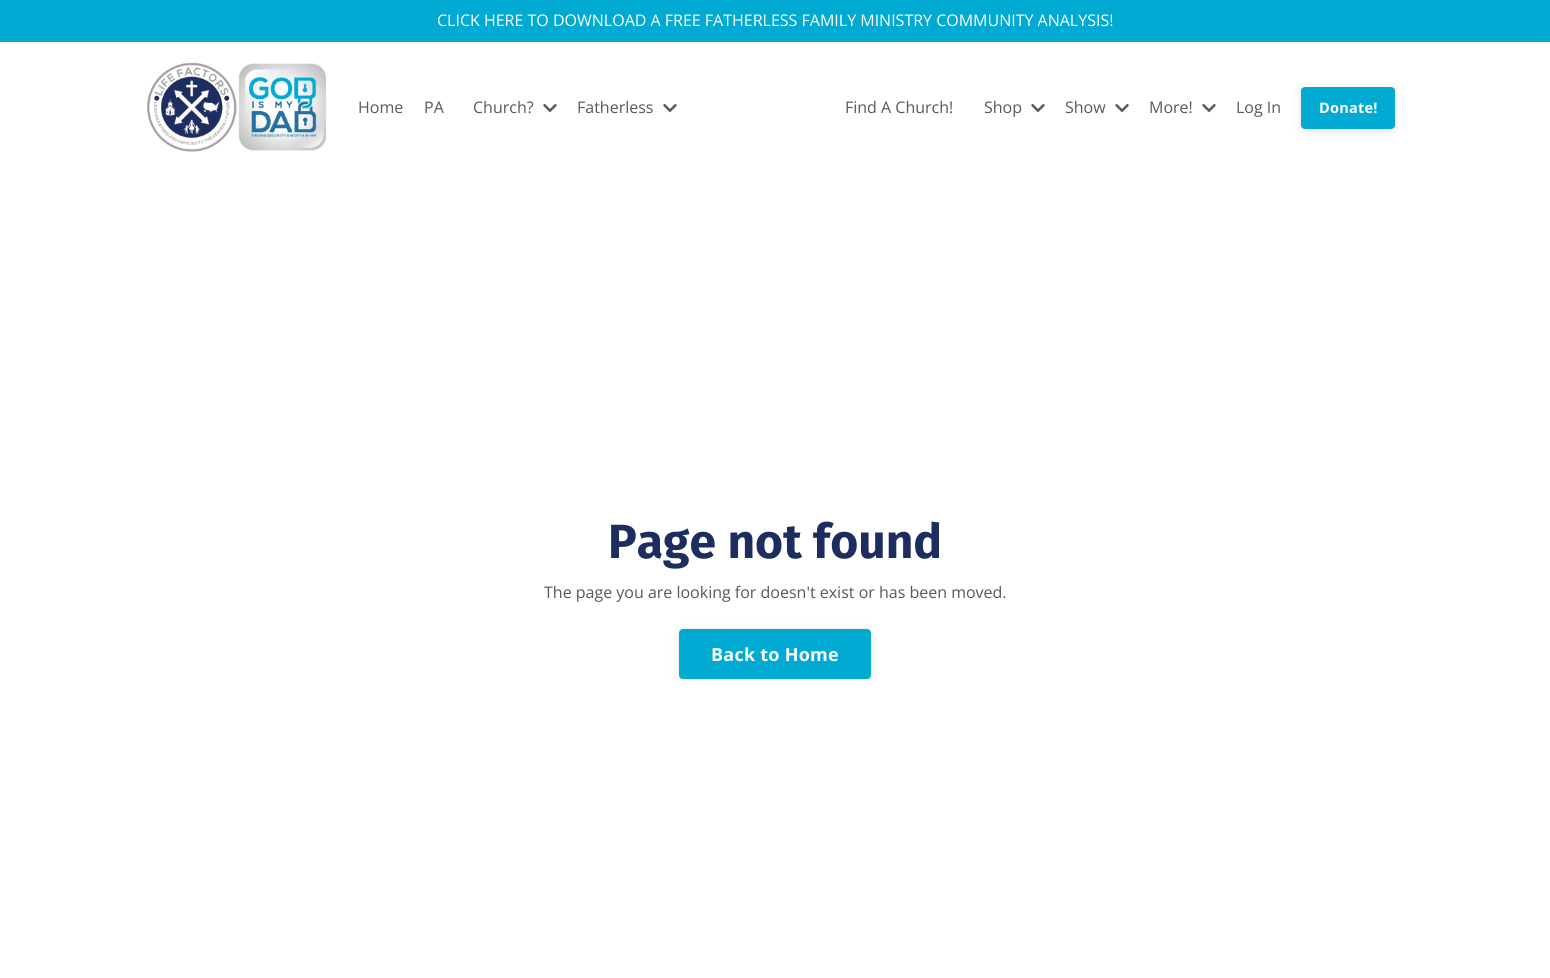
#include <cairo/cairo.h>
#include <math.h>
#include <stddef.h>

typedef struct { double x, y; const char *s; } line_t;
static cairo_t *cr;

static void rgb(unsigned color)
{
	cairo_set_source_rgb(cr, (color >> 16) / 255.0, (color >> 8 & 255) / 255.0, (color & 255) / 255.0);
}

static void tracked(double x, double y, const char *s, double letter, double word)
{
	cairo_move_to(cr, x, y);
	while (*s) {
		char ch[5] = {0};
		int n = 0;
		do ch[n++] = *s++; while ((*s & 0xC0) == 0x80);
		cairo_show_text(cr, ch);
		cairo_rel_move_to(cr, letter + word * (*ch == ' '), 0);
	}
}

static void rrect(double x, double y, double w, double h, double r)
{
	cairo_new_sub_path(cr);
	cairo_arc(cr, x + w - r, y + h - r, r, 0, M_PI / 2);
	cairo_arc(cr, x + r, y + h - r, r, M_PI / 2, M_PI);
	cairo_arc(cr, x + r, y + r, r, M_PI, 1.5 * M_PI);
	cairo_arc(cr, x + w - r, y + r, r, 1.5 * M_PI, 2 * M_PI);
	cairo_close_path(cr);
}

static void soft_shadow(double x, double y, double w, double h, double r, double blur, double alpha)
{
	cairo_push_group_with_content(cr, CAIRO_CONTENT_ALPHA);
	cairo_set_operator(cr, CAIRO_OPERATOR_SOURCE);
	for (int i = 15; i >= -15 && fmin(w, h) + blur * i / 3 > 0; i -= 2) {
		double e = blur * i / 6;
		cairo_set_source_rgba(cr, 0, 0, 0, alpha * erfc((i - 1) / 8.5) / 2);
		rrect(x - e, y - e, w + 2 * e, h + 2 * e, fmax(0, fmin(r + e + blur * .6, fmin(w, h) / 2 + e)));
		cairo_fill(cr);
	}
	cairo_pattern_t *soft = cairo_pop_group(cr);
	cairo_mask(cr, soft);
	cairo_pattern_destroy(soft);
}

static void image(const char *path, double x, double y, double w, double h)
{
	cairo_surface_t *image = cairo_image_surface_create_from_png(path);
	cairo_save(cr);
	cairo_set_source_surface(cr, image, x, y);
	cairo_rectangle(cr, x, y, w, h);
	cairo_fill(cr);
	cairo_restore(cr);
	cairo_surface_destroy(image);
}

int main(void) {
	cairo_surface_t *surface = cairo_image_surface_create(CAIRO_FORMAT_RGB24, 1550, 978);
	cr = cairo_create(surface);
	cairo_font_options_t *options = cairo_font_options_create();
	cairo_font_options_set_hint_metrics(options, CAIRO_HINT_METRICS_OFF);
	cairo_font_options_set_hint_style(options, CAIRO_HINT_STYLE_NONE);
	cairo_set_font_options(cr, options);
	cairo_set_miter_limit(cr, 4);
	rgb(0xffffff);
	cairo_paint(cr);
	rgb(0x00aad3);
	cairo_rectangle(cr, 0, 0, 1550, 42);
	cairo_fill(cr);
	image("img/1.png", 147, 62, 180, 90);
	image("img/2.png", 543, 103, 14, 10);
	image("img/2.png", 663, 103, 14, 10);
	image("img/2.png", 1031, 103, 14, 10);
	image("img/2.png", 1115, 103, 14, 10);
	image("img/2.png", 1202, 103, 14, 10);
	rgb(0x000000);
	soft_shadow(1301, 89, 94, 42, 4, 5, 0.1);
	rgb(0x00aad3);
	rrect(1302, 88, 92, 40, 3);
	cairo_fill_preserve(cr);
	cairo_stroke(cr);
	cairo_save(cr);
	rrect(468, 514, 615, 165, 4);
	cairo_clip(cr);
	rgb(0x000000);
	soft_shadow(679, 631, 192, 50, 4, 5, 0.1);
	cairo_restore(cr);
	rrect(680, 630, 190, 48, 3);
	cairo_fill_preserve(cr);
	cairo_stroke(cr);
	cairo_select_font_face(cr, "Open Sans", CAIRO_FONT_SLANT_NORMAL, CAIRO_FONT_WEIGHT_NORMAL);
	cairo_set_font_size(cr, 16);
	rgb(0xffffff);
	cairo_move_to(cr, 437, 26);
	cairo_show_text(cr, "CLICK HERE TO DOWNLOAD A FREE FATHERLESS FAMILY MINISTRY COMMUNITY ANALYSIS!");
	rgb(0x595959);
	{
		static const line_t items[] = {
			{358, 113, "Home"},
			{424, 113, "PA"},
			{473, 113, "Church?"},
			{577, 113, "Fatherless"},
			{845, 113, "Find A Church!"},
			{984, 113, "Shop"},
			{1065, 113, "Show"},
			{1149, 113, "More!"},
			{1236, 113, "Log In"},
		};
		for (size_t i = 0; i < sizeof items / sizeof *items; i++) {
			cairo_move_to(cr, items[i].x, items[i].y);
			cairo_show_text(cr, items[i].s);
		}
	}
	cairo_select_font_face(cr, "Open Sans", CAIRO_FONT_SLANT_NORMAL, CAIRO_FONT_WEIGHT_BOLD);
	cairo_set_font_size(cr, 14.5);
	rgb(0xffffff);
	tracked(1319, 113, "Donate!", 0.25, 0);
	cairo_select_font_face(cr, "Fira Sans", CAIRO_FONT_SLANT_NORMAL, CAIRO_FONT_WEIGHT_BOLD);
	cairo_set_font_size(cr, 48);
	rgb(0x1d2d60);
	cairo_move_to(cr, 608, 558);
	cairo_show_text(cr, "Page not found");
	cairo_select_font_face(cr, "Open Sans", CAIRO_FONT_SLANT_NORMAL, CAIRO_FONT_WEIGHT_NORMAL);
	cairo_set_font_size(cr, 16);
	rgb(0x595959);
	cairo_move_to(cr, 544, 598);
	cairo_show_text(cr, "The page you are looking for doesn't exist or has been moved.");
	cairo_select_font_face(cr, "Open Sans", CAIRO_FONT_SLANT_NORMAL, CAIRO_FONT_WEIGHT_BOLD);
	cairo_set_font_size(cr, 18);
	rgb(0xffffff);
	tracked(711, 661, "Back to Home", 0.25, 0);
	cairo_surface_write_to_png(surface, "page.png");
	cairo_font_options_destroy(options);
	cairo_destroy(cr);
	cairo_surface_destroy(surface);
	return 0;
}
